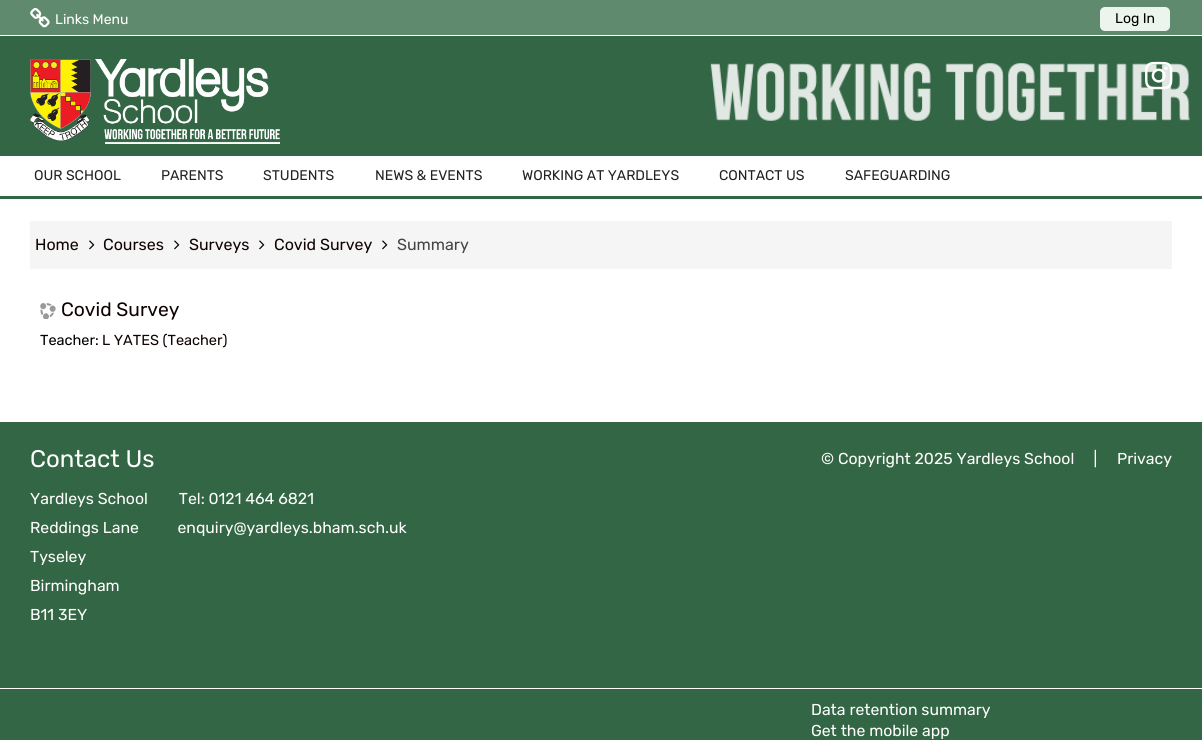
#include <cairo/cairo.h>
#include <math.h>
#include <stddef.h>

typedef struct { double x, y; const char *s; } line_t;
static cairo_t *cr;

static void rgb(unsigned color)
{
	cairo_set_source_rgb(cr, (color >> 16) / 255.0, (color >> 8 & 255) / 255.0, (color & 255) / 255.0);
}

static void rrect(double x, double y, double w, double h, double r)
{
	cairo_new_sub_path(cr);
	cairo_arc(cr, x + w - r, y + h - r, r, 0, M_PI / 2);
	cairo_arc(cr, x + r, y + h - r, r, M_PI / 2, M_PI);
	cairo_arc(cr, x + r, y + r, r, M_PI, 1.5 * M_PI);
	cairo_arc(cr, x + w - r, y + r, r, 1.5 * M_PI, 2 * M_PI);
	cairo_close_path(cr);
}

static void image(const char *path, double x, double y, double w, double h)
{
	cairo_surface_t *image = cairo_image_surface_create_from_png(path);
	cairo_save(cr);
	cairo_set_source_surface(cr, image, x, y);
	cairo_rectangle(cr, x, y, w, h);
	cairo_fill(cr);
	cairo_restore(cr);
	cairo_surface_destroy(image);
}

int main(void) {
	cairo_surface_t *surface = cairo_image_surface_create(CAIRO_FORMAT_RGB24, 1202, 740);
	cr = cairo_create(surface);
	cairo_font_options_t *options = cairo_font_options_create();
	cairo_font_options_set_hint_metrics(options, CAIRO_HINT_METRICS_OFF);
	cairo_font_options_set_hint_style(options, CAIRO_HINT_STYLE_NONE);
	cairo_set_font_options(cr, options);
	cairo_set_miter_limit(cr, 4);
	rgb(0xffffff);
	cairo_paint(cr);
	image("img/1.png", 0, 36, 1202, 120);
	rgb(0x5f8a6d);
	cairo_rectangle(cr, 0, 0, 1202, 35);
	cairo_fill(cr);
	image("img/2.png", 30, 7, 20, 21);
	rgb(0xebf5ee);
	rrect(1100, 7, 70, 24, 5);
	cairo_fill(cr);
	image("img/3.png", 30, 59, 250, 85);
	image("img/4.png", 1145, 61, 28, 29);
	rgb(0x336644);
	cairo_rectangle(cr, 0, 196, 1202, 3);
	cairo_fill(cr);
	rgb(0xf5f5f5);
	cairo_rectangle(cr, 30, 221, 1142, 48);
	cairo_fill(cr);
	image("img/5.png", 89, 240, 6, 10);
	image("img/5.png", 174, 240, 6, 10);
	image("img/5.png", 259, 240, 6, 10);
	image("img/5.png", 382, 240, 6, 10);
	image("img/6.png", 40, 303, 16, 16);
	rgb(0x336644);
	cairo_rectangle(cr, 0, 422, 1202, 318);
	cairo_fill(cr);
	rgb(0xffffff);
	cairo_rectangle(cr, 0, 688, 1202, 1);
	cairo_fill(cr);
	cairo_select_font_face(cr, "Rubik Light", CAIRO_FONT_SLANT_NORMAL, CAIRO_FONT_WEIGHT_NORMAL);
	cairo_set_font_size(cr, 14);
	cairo_move_to(cr, 55, 24);
	cairo_show_text(cr, "Links Menu");
	rgb(0x000000);
	cairo_move_to(cr, 1115, 23);
	cairo_show_text(cr, "Log In");
	rgb(0x222222);
	{
		static const line_t items[] = {
			{34, 180, "OUR SCHOOL"},
			{161, 180, "PARENTS"},
			{263, 180, "STUDENTS"},
			{375, 180, "NEWS & EVENTS"},
			{522, 180, "WORKING AT YARDLEYS"},
			{719, 180, "CONTACT US"},
			{845, 180, "SAFEGUARDING"},
		};
		for (size_t i = 0; i < sizeof items / sizeof *items; i++) {
			cairo_move_to(cr, items[i].x, items[i].y);
			cairo_show_text(cr, items[i].s);
		}
	}
	cairo_set_font_size(cr, 16);
	rgb(0x0f0200);
	{
		static const line_t items[] = {
			{35, 250, "Home"},
			{103, 250, "Courses"},
			{189, 250, "Surveys"},
			{274, 250, "Covid Survey"},
		};
		for (size_t i = 0; i < sizeof items / sizeof *items; i++) {
			cairo_move_to(cr, items[i].x, items[i].y);
			cairo_show_text(cr, items[i].s);
		}
	}
	rgb(0x444444);
	cairo_move_to(cr, 397, 250);
	cairo_show_text(cr, "Summary");
	cairo_set_font_size(cr, 19.25);
	rgb(0x0f0200);
	cairo_move_to(cr, 61, 316);
	cairo_show_text(cr, "Covid Survey");
	cairo_set_font_size(cr, 14.5);
	rgb(0x000000);
	cairo_move_to(cr, 40, 345);
	cairo_show_text(cr, "Teacher:");
	rgb(0x0f0200);
	cairo_move_to(cr, 102, 345);
	cairo_show_text(cr, "L YATES (Teacher)");
	cairo_set_font_size(cr, 24);
	rgb(0xffffff);
	cairo_move_to(cr, 30, 467);
	cairo_show_text(cr, "Contact Us");
	cairo_set_font_size(cr, 15.8);
	{
		static const line_t items[] = {
			{30, 504, "Yardleys School        Tel: 0121 464 6821"},
			{30, 533, "Reddings Lane          enquiry@yardleys.bham.sch.uk"},
			{30, 562, "Tyseley"},
			{30, 591, "Birmingham"},
			{30, 620, "B11 3EY"},
			{821, 464, "© Copyright 2025 Yardleys School     |"},
			{1117, 464, "Privacy"},
			{811, 715, "Data retention summary"},
			{811, 736, "Get the mobile app"},
		};
		for (size_t i = 0; i < sizeof items / sizeof *items; i++) {
			cairo_move_to(cr, items[i].x, items[i].y);
			cairo_show_text(cr, items[i].s);
		}
	}
	cairo_surface_write_to_png(surface, "page.png");
	cairo_font_options_destroy(options);
	cairo_destroy(cr);
	cairo_surface_destroy(surface);
	return 0;
}
